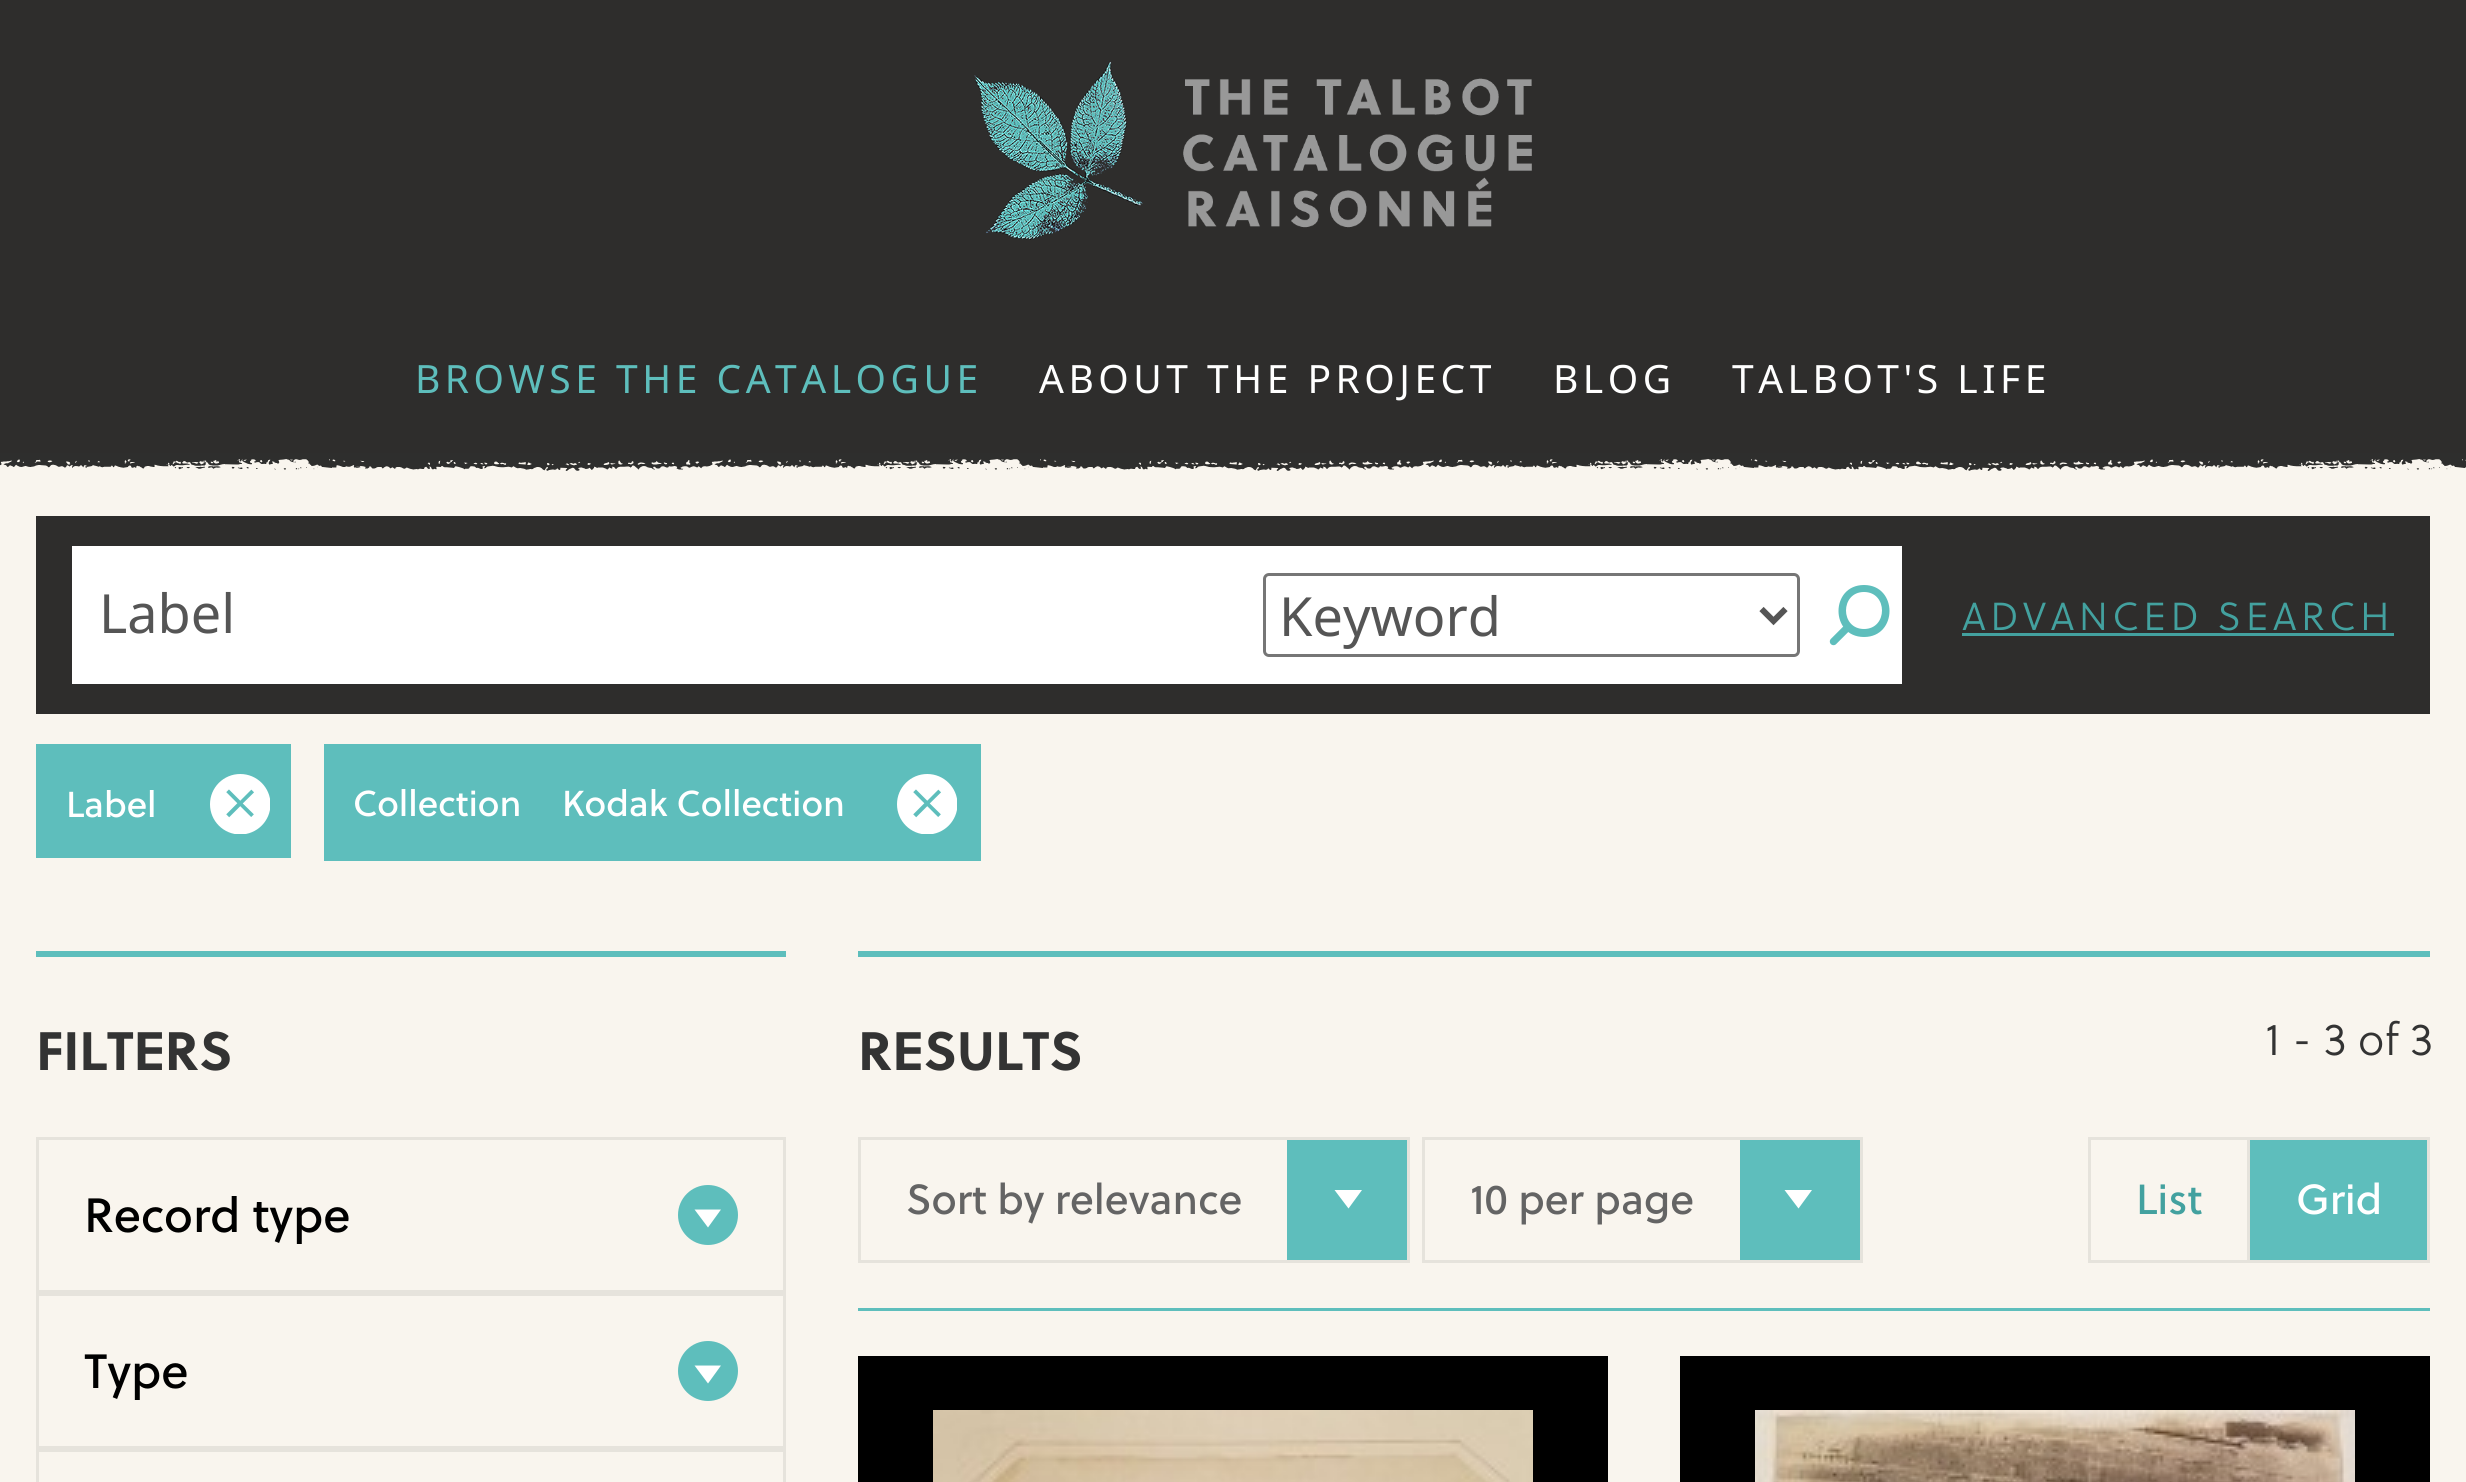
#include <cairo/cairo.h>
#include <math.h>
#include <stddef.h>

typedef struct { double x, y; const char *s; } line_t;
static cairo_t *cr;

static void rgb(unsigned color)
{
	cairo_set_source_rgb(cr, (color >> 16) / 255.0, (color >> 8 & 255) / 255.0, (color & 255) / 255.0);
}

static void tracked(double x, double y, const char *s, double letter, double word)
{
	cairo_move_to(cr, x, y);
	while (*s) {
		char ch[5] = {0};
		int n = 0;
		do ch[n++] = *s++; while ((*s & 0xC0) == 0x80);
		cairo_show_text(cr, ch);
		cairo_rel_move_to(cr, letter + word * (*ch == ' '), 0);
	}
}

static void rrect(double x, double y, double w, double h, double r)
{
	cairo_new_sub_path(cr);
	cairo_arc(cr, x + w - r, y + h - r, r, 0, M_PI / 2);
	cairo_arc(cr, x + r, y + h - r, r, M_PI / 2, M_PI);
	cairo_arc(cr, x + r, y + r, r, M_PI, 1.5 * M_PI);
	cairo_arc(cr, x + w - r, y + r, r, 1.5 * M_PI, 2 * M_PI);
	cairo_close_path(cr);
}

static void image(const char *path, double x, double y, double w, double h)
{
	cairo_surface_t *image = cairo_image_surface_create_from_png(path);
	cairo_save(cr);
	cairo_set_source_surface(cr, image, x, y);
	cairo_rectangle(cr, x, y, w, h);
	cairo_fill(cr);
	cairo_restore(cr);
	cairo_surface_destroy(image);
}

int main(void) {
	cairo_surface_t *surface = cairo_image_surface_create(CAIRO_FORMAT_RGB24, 2466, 1482);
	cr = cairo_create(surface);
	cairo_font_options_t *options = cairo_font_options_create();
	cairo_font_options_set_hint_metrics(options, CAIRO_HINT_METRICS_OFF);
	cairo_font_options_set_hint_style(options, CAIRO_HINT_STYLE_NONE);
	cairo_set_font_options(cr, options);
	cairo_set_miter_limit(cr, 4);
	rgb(0xf9f5ee);
	cairo_paint(cr);
	rgb(0x2e2d2c);
	cairo_rectangle(cr, 0, 0, 2466, 453);
	cairo_fill(cr);
	image("img/1.png", 974, 61, 558, 179);
	image("img/2.png", 0, 453, 2466, 18);
	cairo_rectangle(cr, 36, 516, 2394, 198);
	cairo_fill(cr);
	rgb(0xffffff);
	cairo_rectangle(cr, 72, 546, 1830, 138);
	cairo_fill(cr);
	rrect(1264.5, 574.5, 534, 81, 4.5);
	rgb(0x767676);
	cairo_set_line_width(cr, 3);
	cairo_stroke(cr);
	cairo_new_path(cr);
	cairo_move_to(cr, 1761.5, 609);
	cairo_line_to(cr, 1773.5, 621);
	cairo_line_to(cr, 1785.5, 609);
	rgb(0x555555);
	cairo_set_line_width(cr, 6);
	cairo_stroke(cr);
	cairo_new_path(cr);
	cairo_move_to(cr, 1864, 611);
	cairo_line_to(cr, 1833.5, 641.5);
	rgb(0x5ebebc);
	cairo_set_line_width(cr, 7.4);
	cairo_set_line_cap(cr, CAIRO_LINE_CAP_ROUND);
	cairo_set_line_join(cr, CAIRO_LINE_JOIN_ROUND);
	cairo_stroke(cr);
	rgb(0xffffff);
	cairo_arc(cr, 1864, 611, 22, 0, 2 * M_PI);
	cairo_fill(cr);
	rgb(0x5ebebc);
	cairo_new_path(cr);
	cairo_move_to(cr, 1864, 592);
	cairo_curve_to(cr, 1888, 592, 1888, 629, 1864, 629);
	cairo_curve_to(cr, 1840, 629, 1840, 592, 1864, 592);
	cairo_move_to(cr, 1864, 585);
	cairo_curve_to(cr, 1830, 585, 1830, 637, 1864, 637);
	cairo_curve_to(cr, 1898, 637, 1898, 585, 1864, 585);
	cairo_close_path(cr);
	cairo_fill(cr);
	rgb(0x43a19f);
	cairo_rectangle(cr, 1962, 633, 432, 3);
	cairo_fill(cr);
	rgb(0x5ebebc);
	cairo_rectangle(cr, 36, 744, 255, 114);
	cairo_fill(cr);
	image("img/3.png", 210, 774, 60, 60);
	cairo_rectangle(cr, 324, 744, 657, 117);
	cairo_fill(cr);
	image("img/3.png", 897, 774, 60, 60);
	cairo_rectangle(cr, 36, 951, 750, 6);
	cairo_fill(cr);
	cairo_rectangle(cr, 37.5, 1138.5, 747, 153);
	rgb(0xe6e3dc);
	cairo_set_line_width(cr, 3);
	cairo_set_line_cap(cr, CAIRO_LINE_CAP_BUTT);
	cairo_set_line_join(cr, CAIRO_LINE_JOIN_MITER);
	cairo_stroke(cr);
	rgb(0x5ebebc);
	cairo_arc(cr, 708, 1215, 30, 0, 2 * M_PI);
	cairo_fill(cr);
	rgb(0xffffff);
	cairo_new_path(cr);
	cairo_move_to(cr, 721, 1209.5);
	cairo_line_to(cr, 708, 1227.5);
	cairo_line_to(cr, 694.5, 1209.5);
	cairo_fill(cr);
	cairo_rectangle(cr, 37.5, 1294.5, 747, 153);
	rgb(0xe6e3dc);
	cairo_stroke(cr);
	rgb(0x5ebebc);
	cairo_arc(cr, 708, 1371, 30, 0, 2 * M_PI);
	cairo_fill(cr);
	rgb(0xffffff);
	cairo_new_path(cr);
	cairo_move_to(cr, 721, 1365.5);
	cairo_line_to(cr, 708, 1383.5);
	cairo_line_to(cr, 694.5, 1365.5);
	cairo_fill(cr);
	cairo_rectangle(cr, 37.5, 1450.5, 747, 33);
	rgb(0xe6e3dc);
	cairo_stroke(cr);
	rgb(0x5ebebc);
	cairo_rectangle(cr, 858, 951, 1572, 6);
	cairo_fill(cr);
	cairo_rectangle(cr, 858, 1308, 1572, 3);
	cairo_fill(cr);
	cairo_rectangle(cr, 859.5, 1138.5, 549, 123);
	rgb(0xe6e3dc);
	cairo_stroke(cr);
	rgb(0x5ebebc);
	cairo_rectangle(cr, 1287, 1140, 120, 120);
	cairo_fill(cr);
	rgb(0xffffff);
	cairo_new_path(cr);
	cairo_move_to(cr, 1362, 1190);
	cairo_line_to(cr, 1348.5, 1208.5);
	cairo_line_to(cr, 1334.5, 1190);
	cairo_fill(cr);
	cairo_rectangle(cr, 1423.5, 1138.5, 438, 123);
	rgb(0xe6e3dc);
	cairo_stroke(cr);
	rgb(0x5ebebc);
	cairo_rectangle(cr, 1740, 1140, 120, 120);
	cairo_fill(cr);
	rgb(0xffffff);
	cairo_new_path(cr);
	cairo_move_to(cr, 1812, 1190);
	cairo_line_to(cr, 1798.5, 1208.5);
	cairo_line_to(cr, 1784.5, 1190);
	cairo_fill(cr);
	cairo_rectangle(cr, 2089.5, 1138.5, 159, 123);
	rgb(0xe6e3dc);
	cairo_stroke(cr);
	rgb(0x5ebebc);
	cairo_rectangle(cr, 2248.5, 1138.5, 180, 123);
	cairo_fill_preserve(cr);
	rgb(0xe6e3dc);
	cairo_stroke(cr);
	rgb(0x000000);
	cairo_rectangle(cr, 858, 1356, 750, 126);
	cairo_fill(cr);
	image("img/4.png", 933, 1410, 600, 72);
	cairo_rectangle(cr, 1680, 1356, 750, 126);
	cairo_fill(cr);
	image("img/5.png", 1755, 1410, 600, 72);
	cairo_select_font_face(cr, "Noto Sans", CAIRO_FONT_SLANT_NORMAL, CAIRO_FONT_WEIGHT_NORMAL);
	cairo_set_font_size(cr, 39);
	rgb(0x5ebebc);
	tracked(415, 393, "BROWSE THE CATALOGUE", 4.5, 0);
	rgb(0xffffff);
	{
		static const line_t items[] = {
			{1039, 393, "ABOUT THE PROJECT"},
			{1553, 393, "BLOG"},
			{1732, 393, "TALBOT'S LIFE"},
		};
		for (size_t i = 0; i < sizeof items / sizeof *items; i++) {
			tracked(items[i].x, items[i].y, items[i].s, 4.5, 0);
		}
	}
	cairo_set_font_size(cr, 54);
	rgb(0x555555);
	cairo_move_to(cr, 99, 633);
	cairo_show_text(cr, "Label");
	cairo_move_to(cr, 1279, 636);
	cairo_show_text(cr, "Keyword");
	cairo_select_font_face(cr, "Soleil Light", CAIRO_FONT_SLANT_NORMAL, CAIRO_FONT_WEIGHT_NORMAL);
	cairo_set_font_size(cr, 39);
	rgb(0x43a19f);
	tracked(1962, 630, "ADVANCED SEARCH", 4.5, 0);
	cairo_select_font_face(cr, "Soleil", CAIRO_FONT_SLANT_NORMAL, CAIRO_FONT_WEIGHT_NORMAL);
	cairo_set_font_size(cr, 36);
	rgb(0xffffff);
	{
		static const line_t items[] = {
			{66, 817, "Label"},
			{353, 816, "Collection"},
			{562, 816, "Kodak Collection"},
		};
		for (size_t i = 0; i < sizeof items / sizeof *items; i++) {
			cairo_move_to(cr, items[i].x, items[i].y);
			cairo_show_text(cr, items[i].s);
		}
	}
	cairo_select_font_face(cr, "Soleil", CAIRO_FONT_SLANT_NORMAL, CAIRO_FONT_WEIGHT_BOLD);
	cairo_set_font_size(cr, 54);
	rgb(0x333333);
	cairo_move_to(cr, 36, 1070);
	cairo_show_text(cr, "FILTERS");
	cairo_select_font_face(cr, "Soleil", CAIRO_FONT_SLANT_NORMAL, CAIRO_FONT_WEIGHT_NORMAL);
	cairo_set_font_size(cr, 48);
	rgb(0x000000);
	cairo_move_to(cr, 84, 1232);
	cairo_show_text(cr, "Record type");
	cairo_move_to(cr, 84, 1388);
	cairo_show_text(cr, "Type");
	cairo_select_font_face(cr, "Soleil", CAIRO_FONT_SLANT_NORMAL, CAIRO_FONT_WEIGHT_BOLD);
	cairo_set_font_size(cr, 54);
	rgb(0x333333);
	cairo_move_to(cr, 858, 1070);
	cairo_show_text(cr, "RESULTS");
	cairo_select_font_face(cr, "Soleil Light", CAIRO_FONT_SLANT_NORMAL, CAIRO_FONT_WEIGHT_NORMAL);
	cairo_set_font_size(cr, 45);
	cairo_move_to(cr, 2265, 1055);
	cairo_show_text(cr, "1 - 3 of 3");
	cairo_select_font_face(cr, "Soleil", CAIRO_FONT_SLANT_NORMAL, CAIRO_FONT_WEIGHT_NORMAL);
	cairo_set_font_size(cr, 42);
	rgb(0x646464);
	cairo_move_to(cr, 906, 1214);
	cairo_show_text(cr, "Sort by relevance");
	cairo_move_to(cr, 1470, 1214);
	cairo_show_text(cr, "10 per page");
	rgb(0x43a19f);
	cairo_move_to(cr, 2136, 1214);
	cairo_show_text(cr, "List");
	rgb(0xffffff);
	cairo_move_to(cr, 2296, 1214);
	cairo_show_text(cr, "Grid");
	cairo_surface_write_to_png(surface, "page.png");
	cairo_font_options_destroy(options);
	cairo_destroy(cr);
	cairo_surface_destroy(surface);
	return 0;
}
